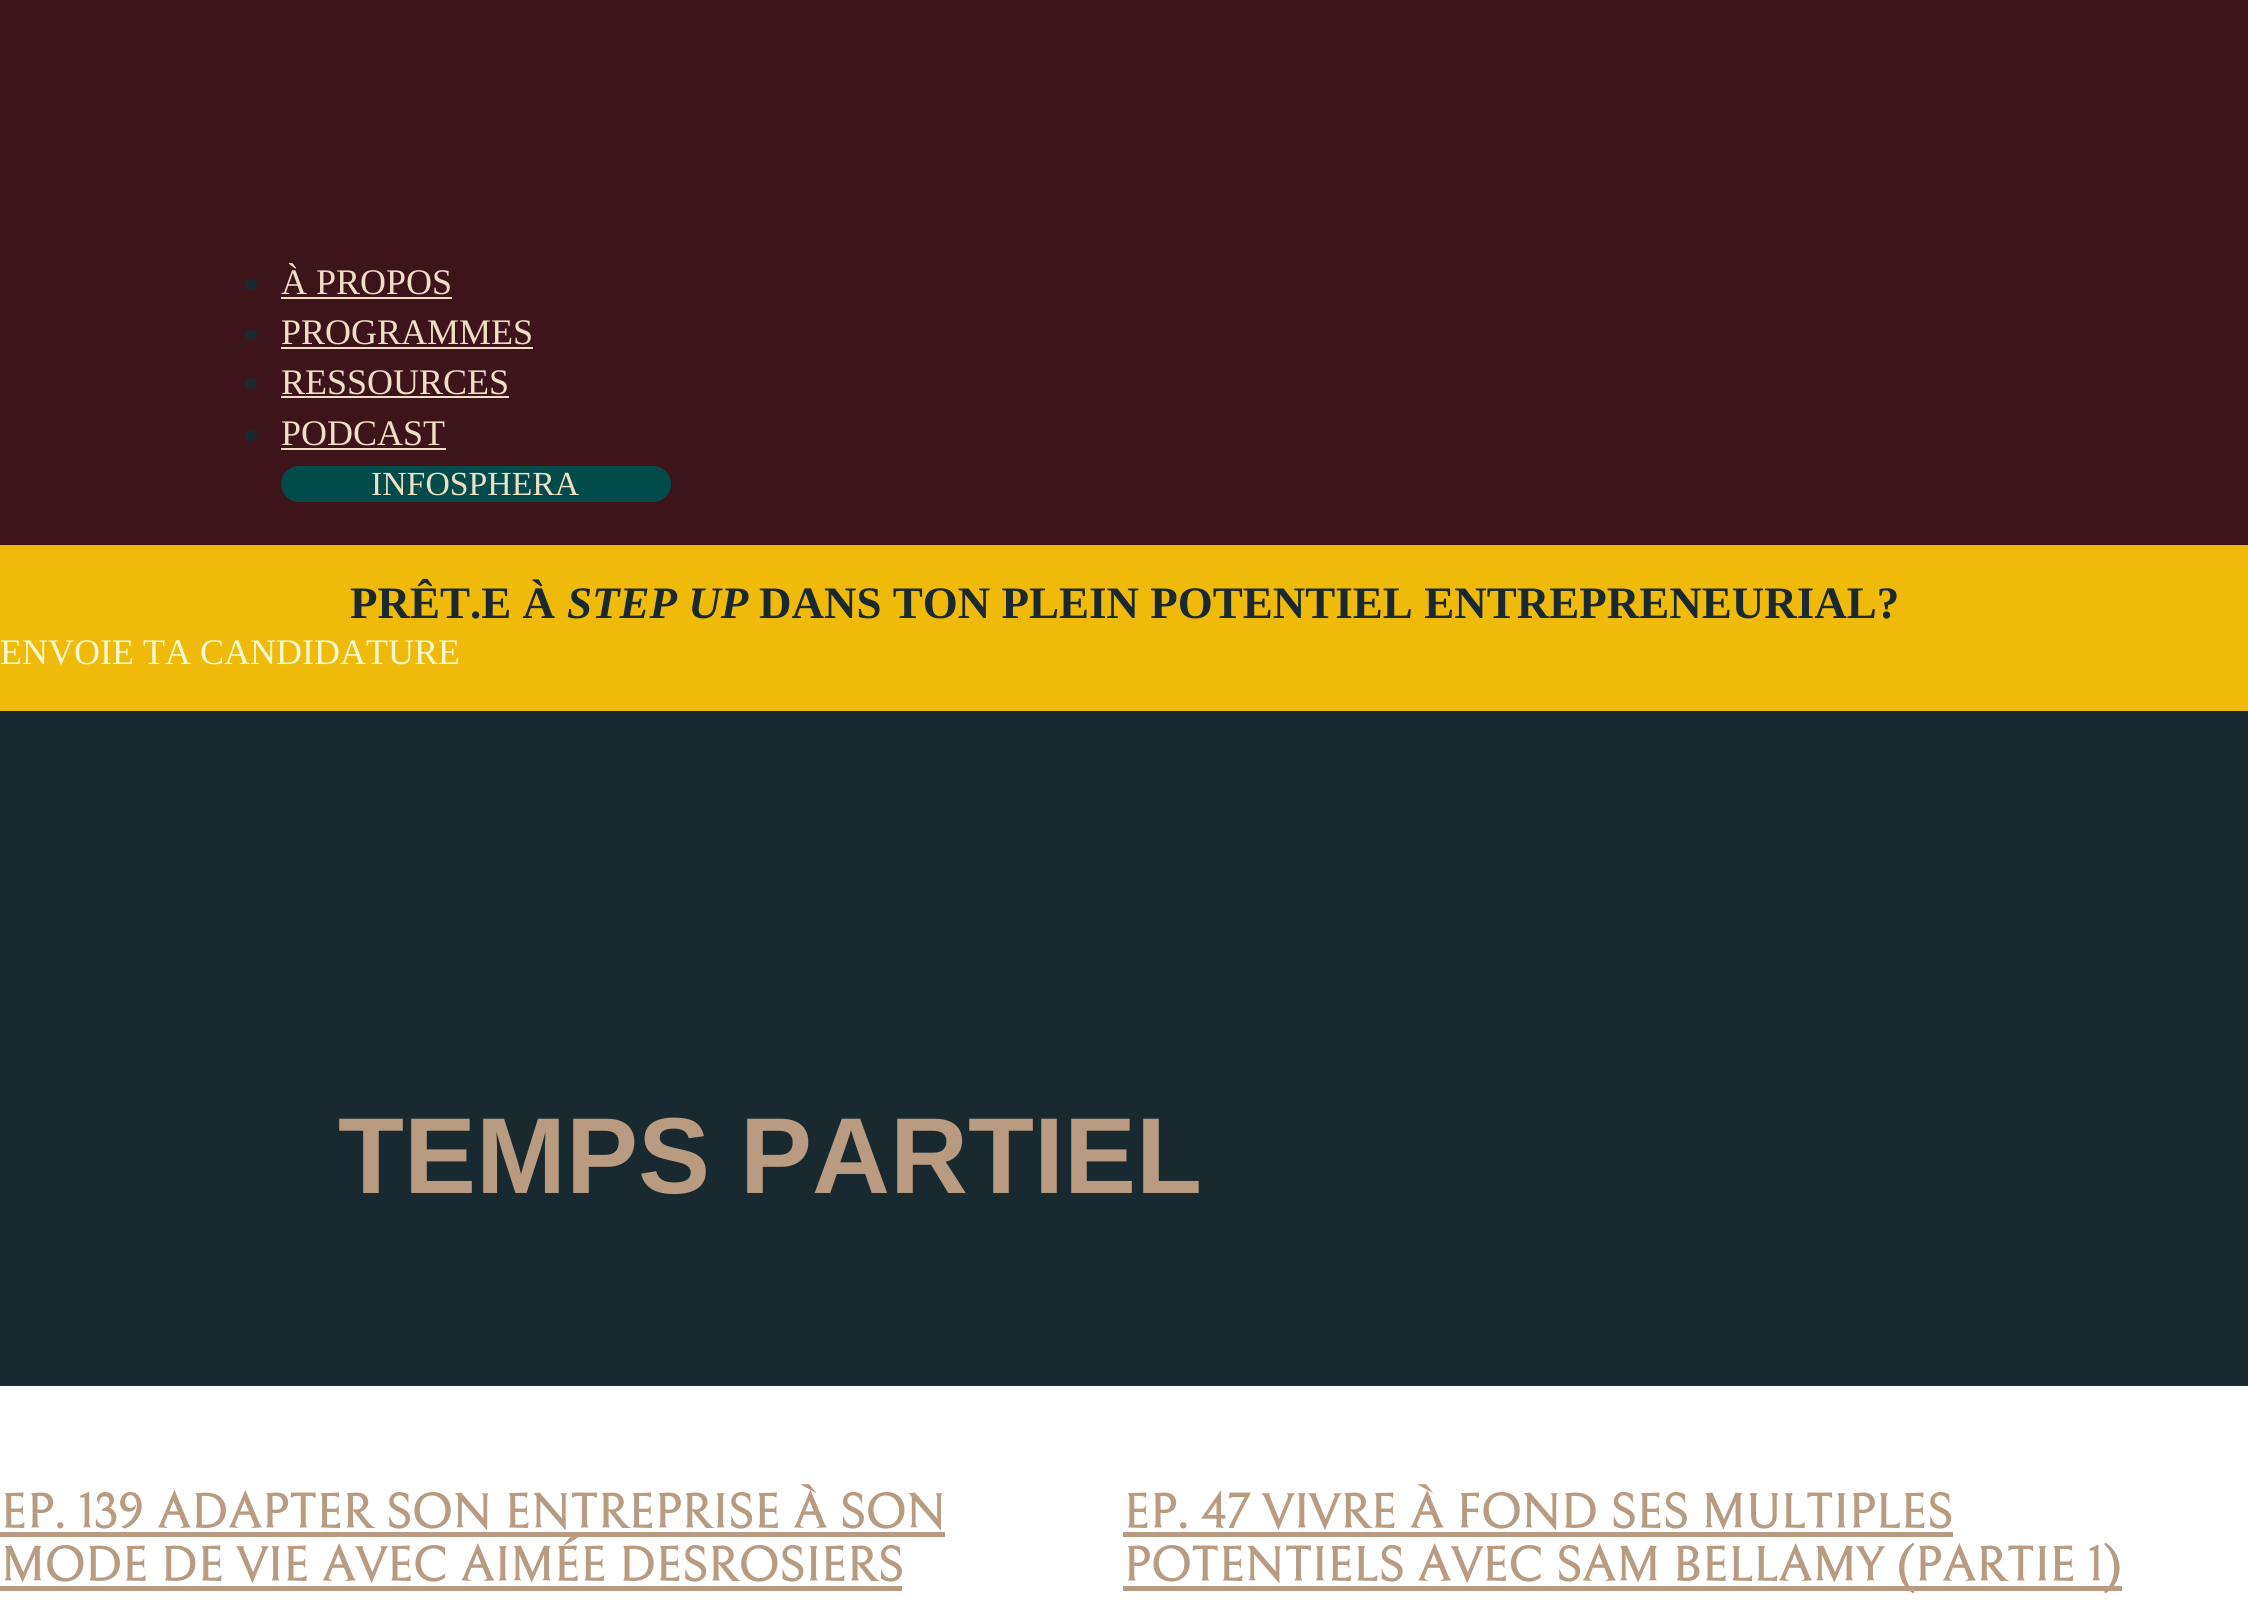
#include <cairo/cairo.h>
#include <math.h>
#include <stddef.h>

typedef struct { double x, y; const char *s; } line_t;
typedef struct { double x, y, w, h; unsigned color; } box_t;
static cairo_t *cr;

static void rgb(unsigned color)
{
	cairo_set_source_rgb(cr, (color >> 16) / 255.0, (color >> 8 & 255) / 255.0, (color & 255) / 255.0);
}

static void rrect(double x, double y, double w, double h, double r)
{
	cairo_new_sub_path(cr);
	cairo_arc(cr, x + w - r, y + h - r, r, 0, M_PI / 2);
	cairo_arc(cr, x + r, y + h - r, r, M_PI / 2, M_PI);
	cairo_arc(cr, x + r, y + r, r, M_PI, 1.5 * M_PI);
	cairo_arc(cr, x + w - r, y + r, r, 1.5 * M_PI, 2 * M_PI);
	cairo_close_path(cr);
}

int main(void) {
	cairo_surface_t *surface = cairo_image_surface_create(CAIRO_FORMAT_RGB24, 2248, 1607);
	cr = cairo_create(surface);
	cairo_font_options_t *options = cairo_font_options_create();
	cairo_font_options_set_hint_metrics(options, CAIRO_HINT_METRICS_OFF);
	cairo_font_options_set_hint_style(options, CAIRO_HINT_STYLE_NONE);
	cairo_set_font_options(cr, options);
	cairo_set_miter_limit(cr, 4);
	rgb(0xffffff);
	cairo_paint(cr);
	rgb(0x3d141a);
	cairo_rectangle(cr, 0, 0, 2248, 545);
	cairo_fill(cr);
	rgb(0x192930);
	rrect(245, 279, 12, 11, 5.5);
	cairo_fill(cr);
	rgb(0xefdfc5);
	cairo_rectangle(cr, 281, 297, 171, 2);
	cairo_fill(cr);
	rgb(0x192930);
	rrect(245, 329, 12, 11, 5.5);
	cairo_fill(cr);
	rgb(0xefdfc5);
	cairo_rectangle(cr, 281, 347, 252, 2);
	cairo_fill(cr);
	rgb(0x192930);
	rrect(245, 378, 12, 11, 5.5);
	cairo_fill(cr);
	rgb(0xefdfc5);
	cairo_rectangle(cr, 281, 396, 228, 2);
	cairo_fill(cr);
	rgb(0x192930);
	rrect(245, 430, 12, 11, 5.5);
	cairo_fill(cr);
	rgb(0xefdfc5);
	cairo_rectangle(cr, 281, 448, 165, 2);
	cairo_fill(cr);
	rgb(0x014b4a);
	rrect(281, 466, 390, 36, 18);
	cairo_fill(cr);
	{
		static const box_t items[] = {
			{0, 545, 2248, 166, 0xf0ba0a},
			{0, 711, 2248, 675, 0x192930},
			{0, 1532, 945, 5, 0xb89b80},
			{0, 1586, 902, 5, 0xb89b80},
			{1123, 1532, 830, 5, 0xb89b80},
			{1123, 1586, 999, 5, 0xb89b80},
		};
		for (size_t i = 0; i < sizeof items / sizeof *items; i++) {
			rgb(items[i].color);
			cairo_rectangle(cr, items[i].x, items[i].y, items[i].w, items[i].h);
			cairo_fill(cr);
		}
	}
	cairo_select_font_face(cr, "Liberation Serif", CAIRO_FONT_SLANT_NORMAL, CAIRO_FONT_WEIGHT_NORMAL);
	cairo_set_font_size(cr, 36);
	rgb(0xefdfc5);
	{
		static const line_t items[] = {
			{281, 294, "À PROPOS"},
			{281, 344, "PROGRAMMES"},
			{281, 394, "RESSOURCES"},
			{281, 445, "PODCAST"},
		};
		for (size_t i = 0; i < sizeof items / sizeof *items; i++) {
			cairo_move_to(cr, items[i].x, items[i].y);
			cairo_show_text(cr, items[i].s);
		}
	}
	cairo_set_font_size(cr, 33.75);
	cairo_move_to(cr, 371, 495);
	cairo_show_text(cr, "INFOSPHERA");
	cairo_select_font_face(cr, "Liberation Serif", CAIRO_FONT_SLANT_NORMAL, CAIRO_FONT_WEIGHT_BOLD);
	cairo_set_font_size(cr, 45);
	rgb(0x192930);
	cairo_move_to(cr, 350, 618);
	cairo_show_text(cr, "PRÊT.E À");
	cairo_select_font_face(cr, "Liberation Serif", CAIRO_FONT_SLANT_ITALIC, CAIRO_FONT_WEIGHT_BOLD);
	cairo_move_to(cr, 567, 618);
	cairo_show_text(cr, "STEP UP");
	cairo_select_font_face(cr, "Liberation Serif", CAIRO_FONT_SLANT_NORMAL, CAIRO_FONT_WEIGHT_BOLD);
	cairo_move_to(cr, 759, 618);
	cairo_show_text(cr, "DANS TON PLEIN POTENTIEL ENTREPRENEURIAL?");
	cairo_select_font_face(cr, "Liberation Serif", CAIRO_FONT_SLANT_NORMAL, CAIRO_FONT_WEIGHT_NORMAL);
	cairo_set_font_size(cr, 36);
	rgb(0xfaf8d4);
	cairo_move_to(cr, 0, 664);
	cairo_show_text(cr, "ENVOIE TA CANDIDATURE");
	cairo_select_font_face(cr, "Liberation Sans", CAIRO_FONT_SLANT_NORMAL, CAIRO_FONT_WEIGHT_BOLD);
	cairo_set_font_size(cr, 108);
	rgb(0xb89b80);
	cairo_move_to(cr, 338, 1193);
	cairo_show_text(cr, "TEMPS PARTIEL");
	cairo_select_font_face(cr, "Bellefair", CAIRO_FONT_SLANT_NORMAL, CAIRO_FONT_WEIGHT_BOLD);
	cairo_set_font_size(cr, 49.5);
	{
		static const line_t items[] = {
			{0, 1528, "EP. 139 ADAPTER SON ENTREPRISE À SON"},
			{0, 1581, "MODE DE VIE AVEC AIMÉE DESROSIERS"},
			{1123, 1528, "EP. 47 VIVRE À FOND SES MULTIPLES"},
			{1123, 1581, "POTENTIELS AVEC SAM BELLAMY (PARTIE 1)"},
		};
		for (size_t i = 0; i < sizeof items / sizeof *items; i++) {
			cairo_move_to(cr, items[i].x, items[i].y);
			cairo_show_text(cr, items[i].s);
		}
	}
	cairo_surface_write_to_png(surface, "page.png");
	cairo_font_options_destroy(options);
	cairo_destroy(cr);
	cairo_surface_destroy(surface);
	return 0;
}
